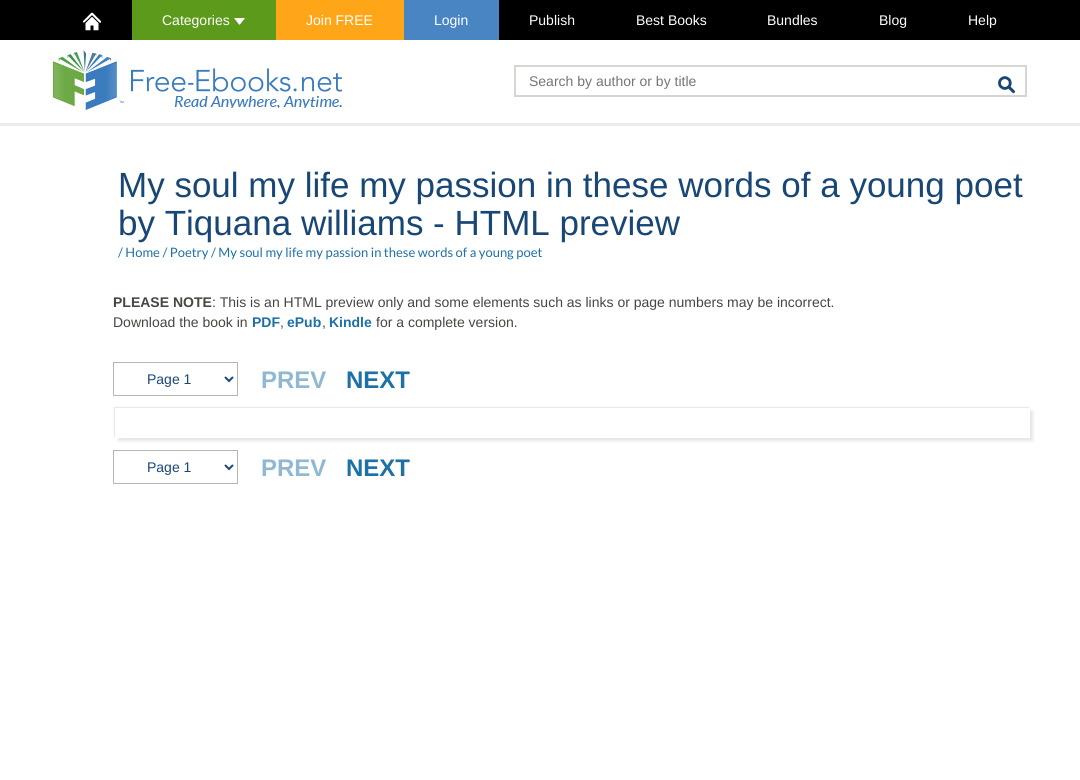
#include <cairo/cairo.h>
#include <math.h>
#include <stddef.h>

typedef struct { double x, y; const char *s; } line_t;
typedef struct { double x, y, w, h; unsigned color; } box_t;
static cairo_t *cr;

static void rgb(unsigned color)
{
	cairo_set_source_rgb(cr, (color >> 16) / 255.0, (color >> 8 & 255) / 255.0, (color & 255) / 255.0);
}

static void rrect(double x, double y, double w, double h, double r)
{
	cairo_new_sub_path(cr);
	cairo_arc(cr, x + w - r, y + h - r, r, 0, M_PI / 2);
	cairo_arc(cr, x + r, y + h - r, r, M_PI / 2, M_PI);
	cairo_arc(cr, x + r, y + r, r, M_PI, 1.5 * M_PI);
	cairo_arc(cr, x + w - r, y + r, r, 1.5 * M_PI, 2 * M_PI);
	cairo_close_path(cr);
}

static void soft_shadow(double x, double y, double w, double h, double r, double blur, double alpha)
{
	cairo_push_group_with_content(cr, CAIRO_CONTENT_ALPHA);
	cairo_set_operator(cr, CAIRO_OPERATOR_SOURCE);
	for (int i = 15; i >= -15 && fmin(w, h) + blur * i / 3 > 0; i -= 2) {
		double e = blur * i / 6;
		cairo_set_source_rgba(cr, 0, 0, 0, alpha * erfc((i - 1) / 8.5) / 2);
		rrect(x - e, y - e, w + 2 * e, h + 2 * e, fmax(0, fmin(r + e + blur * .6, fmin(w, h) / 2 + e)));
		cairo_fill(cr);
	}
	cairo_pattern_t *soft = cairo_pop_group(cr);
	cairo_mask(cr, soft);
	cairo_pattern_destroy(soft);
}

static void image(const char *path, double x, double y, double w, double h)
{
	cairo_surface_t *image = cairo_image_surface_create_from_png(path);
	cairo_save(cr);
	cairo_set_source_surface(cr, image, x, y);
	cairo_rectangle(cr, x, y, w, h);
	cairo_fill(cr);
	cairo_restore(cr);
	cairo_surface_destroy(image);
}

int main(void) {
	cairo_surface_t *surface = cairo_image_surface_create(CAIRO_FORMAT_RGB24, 1080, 780);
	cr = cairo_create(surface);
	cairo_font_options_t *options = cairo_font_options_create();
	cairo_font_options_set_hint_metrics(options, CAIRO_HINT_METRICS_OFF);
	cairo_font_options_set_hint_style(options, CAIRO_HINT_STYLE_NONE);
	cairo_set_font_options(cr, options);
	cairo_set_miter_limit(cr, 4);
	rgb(0xffffff);
	cairo_paint(cr);
	rgb(0x000000);
	cairo_rectangle(cr, 0, 0, 1080, 40);
	cairo_fill(cr);
	image("img/1.png", 83, 12, 18, 19);
	rgb(0x5c9a1b);
	cairo_rectangle(cr, 132, 0, 144, 40);
	cairo_fill(cr);
	image("img/2.png", 234, 18, 11, 7);
	{
		static const box_t items[] = {
			{276, 0, 128, 40, 0xffa518},
			{404, 0, 95, 40, 0x4885c2},
			{0, 123, 1080, 3, 0xebebeb},
		};
		for (size_t i = 0; i < sizeof items / sizeof *items; i++) {
			rgb(items[i].color);
			cairo_rectangle(cr, items[i].x, items[i].y, items[i].w, items[i].h);
			cairo_fill(cr);
		}
	}
	image("img/3.png", 53, 50, 289, 60);
	image("img/4.png", 174, 96, 168, 12);
	{
		static const box_t items[] = {
			{514, 65, 513, 2, 0xd5d5d2},
			{1025, 65, 2, 32, 0xd5d5d2},
			{514, 95, 513, 2, 0xd5d5d2},
		};
		for (size_t i = 0; i < sizeof items / sizeof *items; i++) {
			rgb(items[i].color);
			cairo_rectangle(cr, items[i].x, items[i].y, items[i].w, items[i].h);
			cairo_fill(cr);
		}
	}
	image("img/5.png", 998, 76, 17, 18);
	cairo_rectangle(cr, 514, 65, 2, 32);
	cairo_fill(cr);
	cairo_rectangle(cr, 113.5, 362.5, 124, 33);
	rgb(0xb5b5b2);
	cairo_set_line_width(cr, 1);
	cairo_stroke(cr);
	cairo_new_path(cr);
	cairo_move_to(cr, 225, 377);
	cairo_line_to(cr, 229, 381);
	cairo_line_to(cr, 233, 377);
	rgb(0x194775);
	cairo_set_line_width(cr, 2);
	cairo_stroke(cr);
	cairo_save(cr);
	cairo_set_fill_rule(cr, CAIRO_FILL_RULE_EVEN_ODD);
	cairo_new_path(cr);
	cairo_move_to(cr, 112, 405);
	cairo_line_to(cr, 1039, 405);
	cairo_line_to(cr, 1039, 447);
	cairo_line_to(cr, 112, 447);
	cairo_close_path(cr);
	cairo_move_to(cr, 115, 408);
	cairo_line_to(cr, 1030, 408);
	cairo_line_to(cr, 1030, 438);
	cairo_line_to(cr, 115, 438);
	cairo_close_path(cr);
	cairo_clip(cr);
	rgb(0x000000);
	soft_shadow(118, 411, 915, 30, 0, 1.5, 0.1);
	cairo_restore(cr);
	cairo_save(cr);
	cairo_set_fill_rule(cr, CAIRO_FILL_RULE_EVEN_ODD);
	cairo_new_path(cr);
	cairo_move_to(cr, 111, 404);
	cairo_line_to(cr, 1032, 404);
	cairo_line_to(cr, 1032, 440);
	cairo_line_to(cr, 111, 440);
	cairo_close_path(cr);
	cairo_move_to(cr, 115, 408);
	cairo_line_to(cr, 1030, 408);
	cairo_line_to(cr, 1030, 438);
	cairo_line_to(cr, 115, 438);
	cairo_close_path(cr);
	cairo_clip(cr);
	rgb(0x000000);
	soft_shadow(114, 407, 915, 30, 0, 0.5, 0.1);
	cairo_restore(cr);
	cairo_rectangle(cr, 113.5, 450.5, 124, 33);
	rgb(0xb5b5b2);
	cairo_set_line_width(cr, 1);
	cairo_stroke(cr);
	cairo_new_path(cr);
	cairo_move_to(cr, 225, 465);
	cairo_line_to(cr, 229, 469);
	cairo_line_to(cr, 233, 465);
	rgb(0x194775);
	cairo_set_line_width(cr, 2);
	cairo_stroke(cr);
	cairo_select_font_face(cr, "Liberation Sans", CAIRO_FONT_SLANT_NORMAL, CAIRO_FONT_WEIGHT_NORMAL);
	cairo_set_font_size(cr, 14);
	rgb(0xffffff);
	{
		static const line_t items[] = {
			{162, 25, "Categories"},
			{306, 25, "Join FREE"},
			{434, 25, "Login"},
			{529, 25, "Publish"},
			{636, 25, "Best Books"},
			{767, 25, "Bundles"},
			{879, 25, "Blog"},
			{968, 25, "Help"},
		};
		for (size_t i = 0; i < sizeof items / sizeof *items; i++) {
			cairo_move_to(cr, items[i].x, items[i].y);
			cairo_show_text(cr, items[i].s);
		}
	}
	rgb(0x757575);
	cairo_move_to(cr, 529, 86);
	cairo_show_text(cr, "Search by author or by title");
	cairo_set_font_size(cr, 35);
	rgb(0x194775);
	cairo_move_to(cr, 118, 197);
	cairo_show_text(cr, "My soul my life my passion in these words of a young poet");
	cairo_move_to(cr, 118, 235);
	cairo_show_text(cr, "by Tiquana williams - HTML preview");
	cairo_select_font_face(cr, "Lato", CAIRO_FONT_SLANT_NORMAL, CAIRO_FONT_WEIGHT_NORMAL);
	cairo_set_font_size(cr, 13);
	rgb(0x1d71a6);
	cairo_move_to(cr, 118, 257);
	cairo_show_text(cr, "/ Home / Poetry / My soul my life my passion in these words of a young poet");
	cairo_select_font_face(cr, "Liberation Sans", CAIRO_FONT_SLANT_NORMAL, CAIRO_FONT_WEIGHT_BOLD);
	cairo_set_font_size(cr, 14);
	rgb(0x474641);
	cairo_move_to(cr, 113, 307);
	cairo_show_text(cr, "PLEASE NOTE");
	cairo_select_font_face(cr, "Liberation Sans", CAIRO_FONT_SLANT_NORMAL, CAIRO_FONT_WEIGHT_NORMAL);
	cairo_move_to(cr, 212, 307);
	cairo_show_text(cr, ": This is an HTML preview only and some elements such as links or page numbers may be incorrect.");
	cairo_move_to(cr, 113, 327);
	cairo_show_text(cr, "Download the book in");
	cairo_select_font_face(cr, "Liberation Sans", CAIRO_FONT_SLANT_NORMAL, CAIRO_FONT_WEIGHT_BOLD);
	rgb(0x1d71a6);
	cairo_move_to(cr, 252, 327);
	cairo_show_text(cr, "PDF");
	cairo_select_font_face(cr, "Liberation Sans", CAIRO_FONT_SLANT_NORMAL, CAIRO_FONT_WEIGHT_NORMAL);
	rgb(0x474641);
	cairo_move_to(cr, 280, 327);
	cairo_show_text(cr, ",");
	cairo_select_font_face(cr, "Liberation Sans", CAIRO_FONT_SLANT_NORMAL, CAIRO_FONT_WEIGHT_BOLD);
	rgb(0x1d71a6);
	cairo_move_to(cr, 287, 327);
	cairo_show_text(cr, "ePub");
	cairo_select_font_face(cr, "Liberation Sans", CAIRO_FONT_SLANT_NORMAL, CAIRO_FONT_WEIGHT_NORMAL);
	rgb(0x474641);
	cairo_move_to(cr, 322, 327);
	cairo_show_text(cr, ",");
	cairo_select_font_face(cr, "Liberation Sans", CAIRO_FONT_SLANT_NORMAL, CAIRO_FONT_WEIGHT_BOLD);
	rgb(0x1d71a6);
	cairo_move_to(cr, 329, 327);
	cairo_show_text(cr, "Kindle");
	cairo_select_font_face(cr, "Liberation Sans", CAIRO_FONT_SLANT_NORMAL, CAIRO_FONT_WEIGHT_NORMAL);
	rgb(0x474641);
	cairo_move_to(cr, 376, 327);
	cairo_show_text(cr, "for a complete version.");
	rgb(0x194775);
	cairo_move_to(cr, 147, 384);
	cairo_show_text(cr, "Page 1");
	cairo_select_font_face(cr, "Liberation Sans", CAIRO_FONT_SLANT_NORMAL, CAIRO_FONT_WEIGHT_BOLD);
	cairo_set_font_size(cr, 24);
	rgb(0x8eb8d3);
	cairo_move_to(cr, 261, 388);
	cairo_show_text(cr, "PREV");
	rgb(0x1d71a6);
	cairo_move_to(cr, 346, 388);
	cairo_show_text(cr, "NEXT");
	cairo_select_font_face(cr, "Liberation Sans", CAIRO_FONT_SLANT_NORMAL, CAIRO_FONT_WEIGHT_NORMAL);
	cairo_set_font_size(cr, 14);
	rgb(0x194775);
	cairo_move_to(cr, 147, 472);
	cairo_show_text(cr, "Page 1");
	cairo_select_font_face(cr, "Liberation Sans", CAIRO_FONT_SLANT_NORMAL, CAIRO_FONT_WEIGHT_BOLD);
	cairo_set_font_size(cr, 24);
	rgb(0x8eb8d3);
	cairo_move_to(cr, 261, 476);
	cairo_show_text(cr, "PREV");
	rgb(0x1d71a6);
	cairo_move_to(cr, 346, 476);
	cairo_show_text(cr, "NEXT");
	cairo_surface_write_to_png(surface, "page.png");
	cairo_font_options_destroy(options);
	cairo_destroy(cr);
	cairo_surface_destroy(surface);
	return 0;
}
